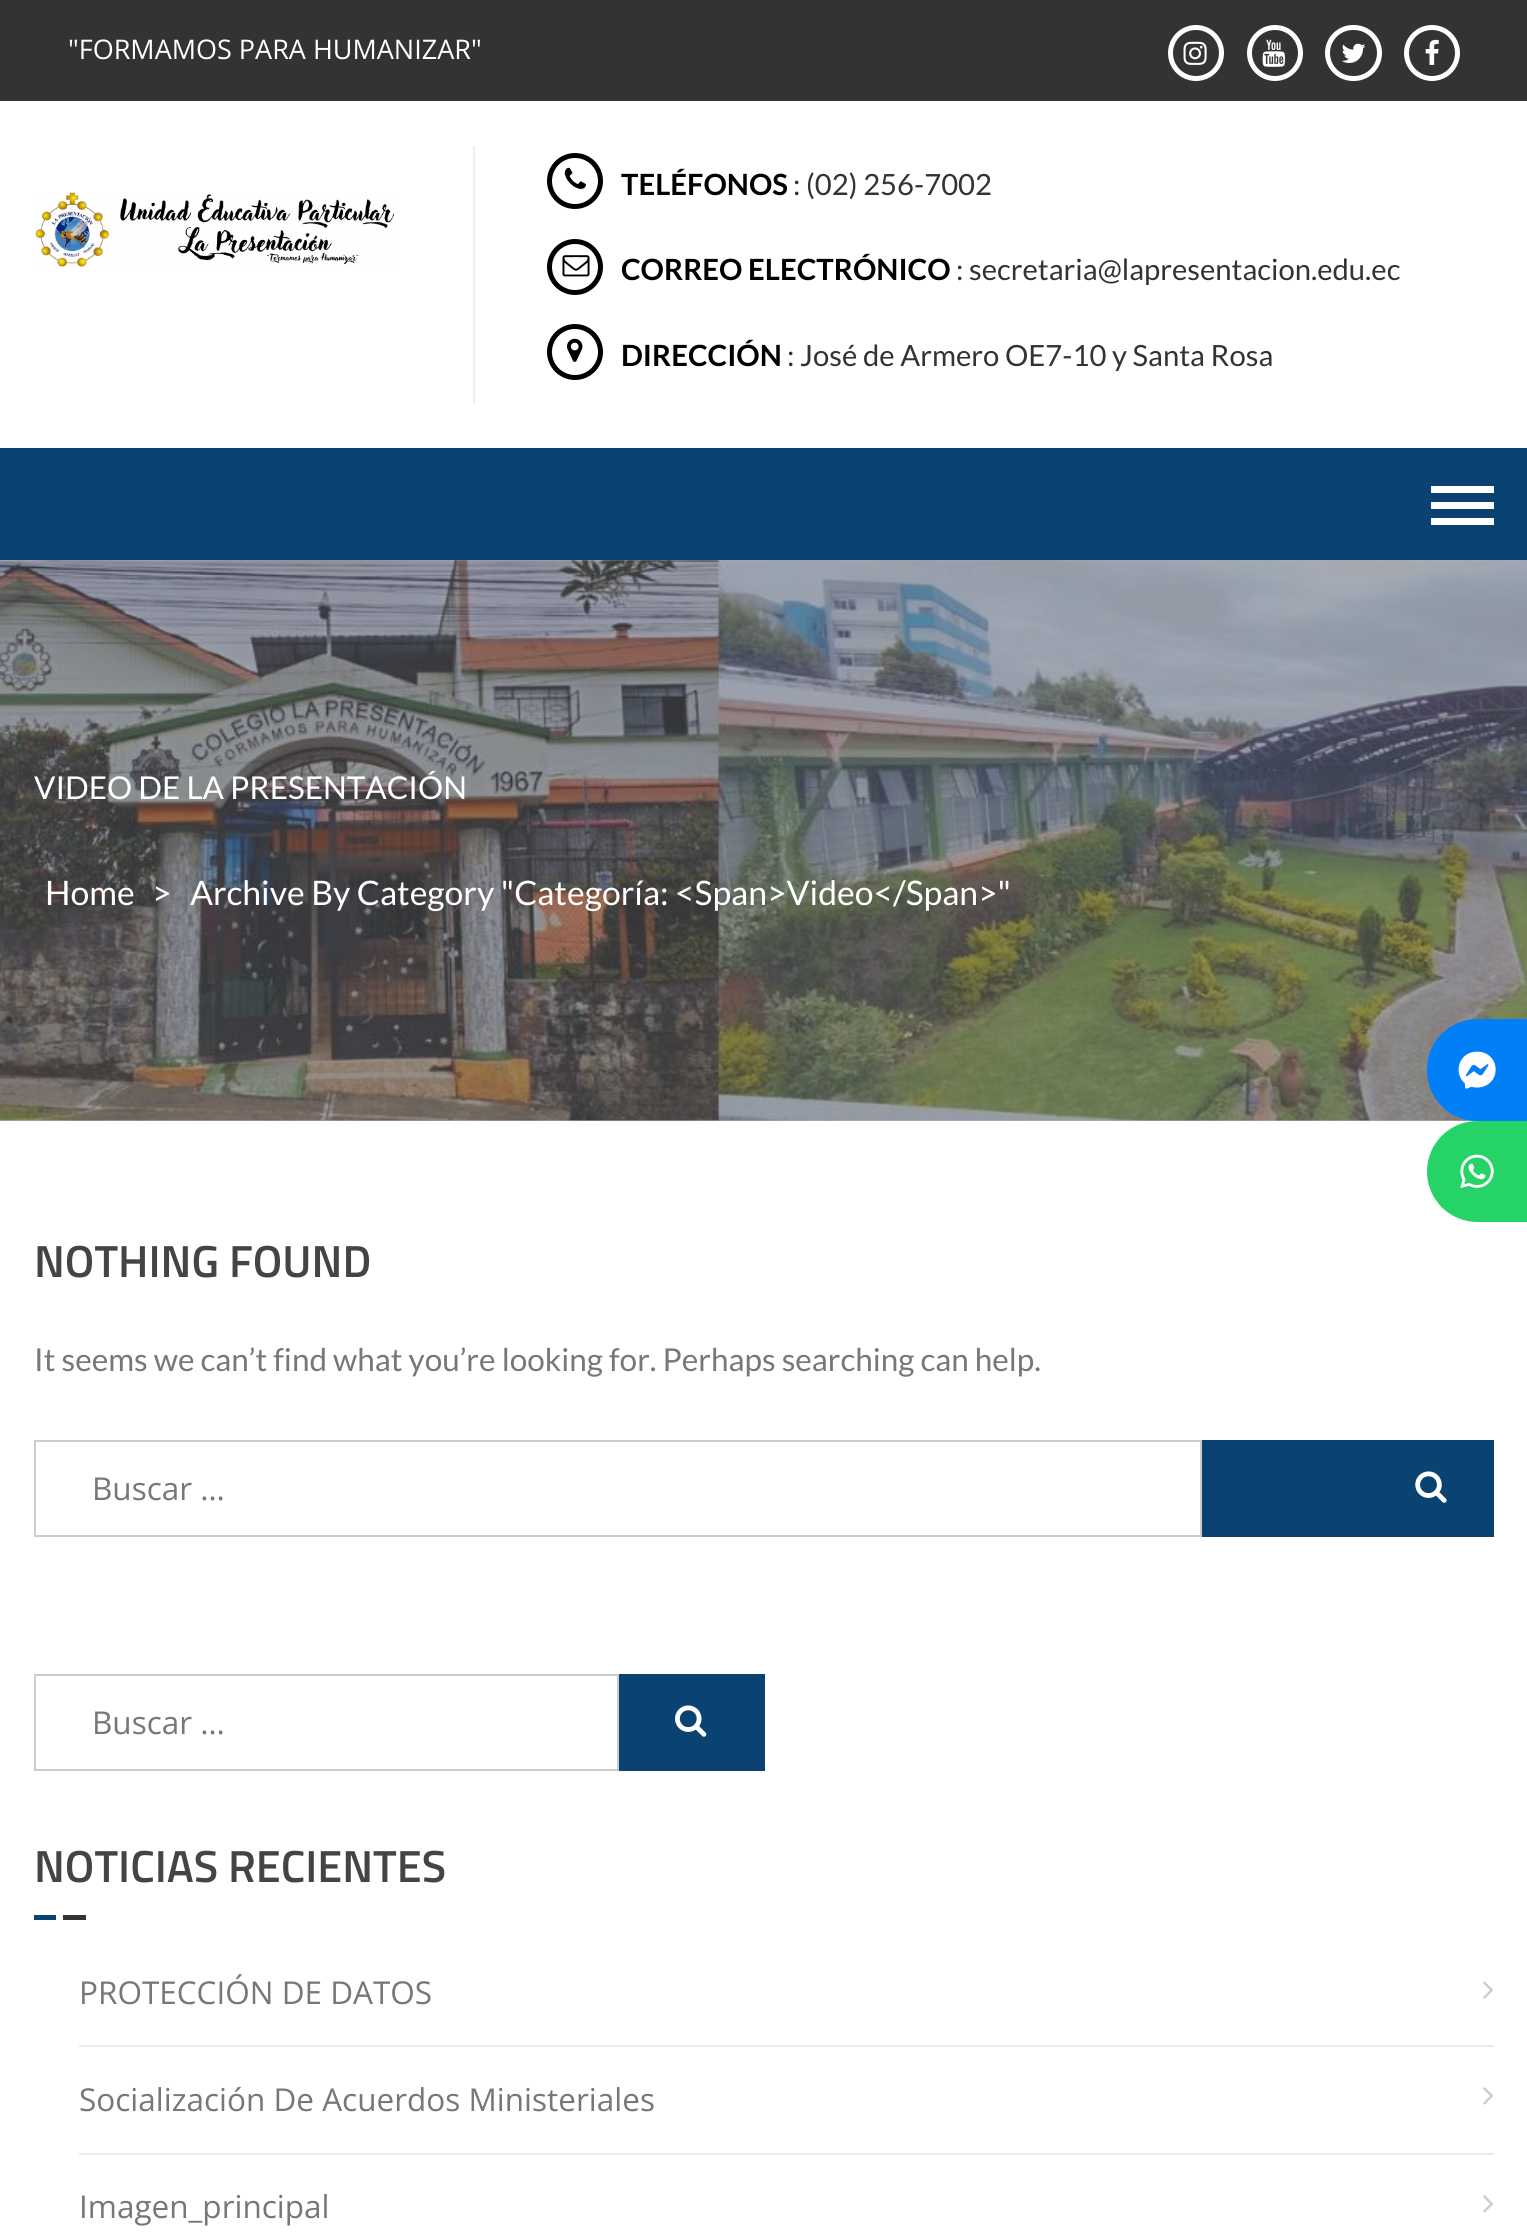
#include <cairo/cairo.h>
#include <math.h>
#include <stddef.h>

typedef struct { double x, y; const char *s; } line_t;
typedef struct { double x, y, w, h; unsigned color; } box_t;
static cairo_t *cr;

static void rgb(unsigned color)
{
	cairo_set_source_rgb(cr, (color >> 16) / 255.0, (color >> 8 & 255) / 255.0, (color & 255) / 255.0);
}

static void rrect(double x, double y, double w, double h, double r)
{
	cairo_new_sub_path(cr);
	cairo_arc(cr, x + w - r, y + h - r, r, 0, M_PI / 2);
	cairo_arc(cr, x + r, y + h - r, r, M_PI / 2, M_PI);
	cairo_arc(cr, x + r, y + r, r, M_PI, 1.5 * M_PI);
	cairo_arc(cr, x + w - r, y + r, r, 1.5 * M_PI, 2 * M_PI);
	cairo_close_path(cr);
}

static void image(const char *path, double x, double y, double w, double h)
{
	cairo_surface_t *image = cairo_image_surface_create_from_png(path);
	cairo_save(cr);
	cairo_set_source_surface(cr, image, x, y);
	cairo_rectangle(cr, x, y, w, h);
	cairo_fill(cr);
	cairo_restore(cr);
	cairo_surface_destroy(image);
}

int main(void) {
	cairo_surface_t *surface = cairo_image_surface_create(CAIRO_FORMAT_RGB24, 1527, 2237);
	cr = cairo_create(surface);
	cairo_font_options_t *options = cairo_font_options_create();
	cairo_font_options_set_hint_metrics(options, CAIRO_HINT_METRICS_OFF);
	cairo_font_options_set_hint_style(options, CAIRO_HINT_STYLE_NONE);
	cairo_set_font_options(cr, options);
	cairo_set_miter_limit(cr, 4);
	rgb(0xffffff);
	cairo_paint(cr);
	rgb(0xb3b3b3);
	cairo_rectangle(cr, 0, 560, 1527, 561);
	cairo_fill(cr);
	rgb(0x333333);
	cairo_rectangle(cr, 0, 0, 1527, 101);
	cairo_fill(cr);
	cairo_arc(cr, 1196, 53, 25.5, 0, 2 * M_PI);
	rgb(0xffffff);
	cairo_set_line_width(cr, 5);
	cairo_stroke(cr);
	image("img/1.png", 1183, 41, 24, 24);
	cairo_arc(cr, 1275, 53, 25.5, 0, 2 * M_PI);
	cairo_stroke(cr);
	image("img/2.png", 1262, 39, 23, 28);
	rrect(1327.5, 27.5, 52, 51, 25.5);
	cairo_stroke(cr);
	image("img/3.png", 1341, 43, 25, 20);
	cairo_arc(cr, 1432, 53, 25.5, 0, 2 * M_PI);
	cairo_stroke(cr);
	image("img/4.png", 1425, 39, 14, 26);
	image("img/5.png", 35, 192, 360, 75);
	rgb(0xeeeeee);
	cairo_rectangle(cr, 473, 146, 2, 257);
	cairo_fill(cr);
	cairo_arc(cr, 575, 181, 25.5, 0, 2 * M_PI);
	rgb(0x000000);
	cairo_stroke(cr);
	image("img/6.png", 564, 167, 22, 22);
	cairo_arc(cr, 575, 267, 25.5, 0, 2 * M_PI);
	cairo_stroke(cr);
	image("img/7.png", 562, 255, 28, 22);
	cairo_arc(cr, 575, 352, 25.5, 0, 2 * M_PI);
	cairo_stroke(cr);
	image("img/8.png", 567, 338, 16, 24);
	{
		static const box_t items[] = {
			{0, 448, 1527, 112, 0x0a4372},
			{1431, 486, 63, 7, 0xffffff},
			{1431, 502, 63, 7, 0xffffff},
			{1431, 518, 63, 7, 0xffffff},
		};
		for (size_t i = 0; i < sizeof items / sizeof *items; i++) {
			rgb(items[i].color);
			cairo_rectangle(cr, items[i].x, items[i].y, items[i].w, items[i].h);
			cairo_fill(cr);
		}
	}
	image("img/9.png", 0, 560, 1527, 561);
	rgb(0x0a4372);
	cairo_rectangle(cr, 1202, 1440, 292, 97);
	cairo_fill(cr);
	cairo_rectangle(cr, 35, 1441, 1166, 95);
	rgb(0xcccccc);
	cairo_set_line_width(cr, 2);
	cairo_stroke(cr);
	image("img/10.png", 1415, 1471, 32, 32);
	rgb(0x0a4372);
	cairo_rectangle(cr, 619, 1674, 146, 97);
	cairo_fill(cr);
	cairo_rectangle(cr, 35, 1675, 583, 95);
	rgb(0xcccccc);
	cairo_stroke(cr);
	image("img/11.png", 675, 1705, 32, 32);
	{
		static const box_t items[] = {
			{34, 1915, 22, 5, 0x0a4372},
			{63, 1915, 23, 5, 0x333333},
			{79, 2045, 1415, 2, 0xeaeaea},
		};
		for (size_t i = 0; i < sizeof items / sizeof *items; i++) {
			rgb(items[i].color);
			cairo_rectangle(cr, items[i].x, items[i].y, items[i].w, items[i].h);
			cairo_fill(cr);
		}
	}
	image("img/12.png", 1483, 1981, 10, 18);
	cairo_rectangle(cr, 79, 2153, 1415, 2);
	cairo_fill(cr);
	image("img/13.png", 1483, 2087, 10, 18);
	image("img/13.png", 1483, 2195, 10, 18);
	rgb(0x007ff7);
	cairo_new_path(cr);
	cairo_move_to(cr, 1477.5, 1019);
	cairo_line_to(cr, 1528, 1019);
	cairo_line_to(cr, 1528, 1121);
	cairo_line_to(cr, 1477.5, 1121);
	cairo_curve_to(cr, 1449.5, 1121, 1427, 1098.5, 1427, 1070.5);
	cairo_line_to(cr, 1427, 1069.5);
	cairo_curve_to(cr, 1427, 1041.5, 1449.5, 1019, 1477.5, 1019);
	cairo_close_path(cr);
	cairo_fill(cr);
	image("img/14.png", 1458, 1051, 38, 38);
	rgb(0x26d367);
	cairo_new_path(cr);
	cairo_move_to(cr, 1477.5, 1121);
	cairo_line_to(cr, 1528, 1121);
	cairo_line_to(cr, 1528, 1222);
	cairo_line_to(cr, 1477.5, 1222);
	cairo_curve_to(cr, 1449.5, 1222, 1427, 1199.5, 1427, 1171.5);
	cairo_curve_to(cr, 1427, 1143.5, 1449.5, 1121, 1477.5, 1121);
	cairo_close_path(cr);
	cairo_fill(cr);
	image("img/15.png", 1460, 1154, 34, 35);
	cairo_select_font_face(cr, "Open Sans", CAIRO_FONT_SLANT_NORMAL, CAIRO_FONT_WEIGHT_NORMAL);
	cairo_set_font_size(cr, 27);
	rgb(0xffffff);
	cairo_move_to(cr, 68, 59);
	cairo_show_text(cr, "\"FORMAMOS PARA HUMANIZAR\"");
	cairo_select_font_face(cr, "Lato", CAIRO_FONT_SLANT_NORMAL, CAIRO_FONT_WEIGHT_BOLD);
	cairo_set_font_size(cr, 29.25);
	rgb(0x000000);
	cairo_move_to(cr, 621, 195);
	cairo_show_text(cr, "TELÉFONOS");
	cairo_select_font_face(cr, "Lato", CAIRO_FONT_SLANT_NORMAL, CAIRO_FONT_WEIGHT_NORMAL);
	rgb(0x333333);
	cairo_move_to(cr, 793, 195);
	cairo_show_text(cr, ": (02) 256-7002");
	cairo_select_font_face(cr, "Lato", CAIRO_FONT_SLANT_NORMAL, CAIRO_FONT_WEIGHT_BOLD);
	rgb(0x000000);
	cairo_move_to(cr, 621, 280);
	cairo_show_text(cr, "CORREO ELECTRÓNICO");
	cairo_select_font_face(cr, "Lato", CAIRO_FONT_SLANT_NORMAL, CAIRO_FONT_WEIGHT_NORMAL);
	rgb(0x333333);
	cairo_move_to(cr, 956, 280);
	cairo_show_text(cr, ": secretaria@lapresentacion.edu.ec");
	cairo_select_font_face(cr, "Lato", CAIRO_FONT_SLANT_NORMAL, CAIRO_FONT_WEIGHT_BOLD);
	rgb(0x000000);
	cairo_move_to(cr, 621, 366);
	cairo_show_text(cr, "DIRECCIÓN");
	cairo_select_font_face(cr, "Lato", CAIRO_FONT_SLANT_NORMAL, CAIRO_FONT_WEIGHT_NORMAL);
	rgb(0x333333);
	cairo_move_to(cr, 787, 366);
	cairo_show_text(cr, ": José de Armero OE7-10 y Santa Rosa");
	cairo_set_font_size(cr, 31.5);
	rgb(0xffffff);
	cairo_move_to(cr, 34, 799);
	cairo_show_text(cr, "VIDEO DE LA PRESENTACIÓN");
	cairo_set_font_size(cr, 33.75);
	{
		static const line_t items[] = {
			{45, 905, "Home"},
			{152, 905, ">"},
			{190, 905, "Archive By Category \"Categoría: <Span>Video</Span>\""},
		};
		for (size_t i = 0; i < sizeof items / sizeof *items; i++) {
			cairo_move_to(cr, items[i].x, items[i].y);
			cairo_show_text(cr, items[i].s);
		}
	}
	cairo_select_font_face(cr, "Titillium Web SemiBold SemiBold", CAIRO_FONT_SLANT_NORMAL, CAIRO_FONT_WEIGHT_NORMAL);
	cairo_set_font_size(cr, 45);
	rgb(0x444444);
	cairo_move_to(cr, 34, 1277);
	cairo_show_text(cr, "NOTHING FOUND");
	cairo_select_font_face(cr, "Lato", CAIRO_FONT_SLANT_NORMAL, CAIRO_FONT_WEIGHT_NORMAL);
	cairo_set_font_size(cr, 31.5);
	rgb(0x777777);
	cairo_move_to(cr, 34, 1371);
	cairo_show_text(cr, "It seems we can’t find what you’re looking for. Perhaps searching can help.");
	cairo_select_font_face(cr, "Open Sans", CAIRO_FONT_SLANT_NORMAL, CAIRO_FONT_WEIGHT_NORMAL);
	cairo_move_to(cr, 92, 1500);
	cairo_show_text(cr, "Buscar …");
	cairo_move_to(cr, 92, 1734);
	cairo_show_text(cr, "Buscar …");
	cairo_select_font_face(cr, "Titillium Web SemiBold SemiBold", CAIRO_FONT_SLANT_NORMAL, CAIRO_FONT_WEIGHT_NORMAL);
	cairo_set_font_size(cr, 45);
	rgb(0x444444);
	cairo_move_to(cr, 34, 1882);
	cairo_show_text(cr, "NOTICIAS RECIENTES");
	cairo_select_font_face(cr, "Open Sans", CAIRO_FONT_SLANT_NORMAL, CAIRO_FONT_WEIGHT_NORMAL);
	cairo_set_font_size(cr, 31.5);
	rgb(0x777777);
	{
		static const line_t items[] = {
			{79, 2004, "PROTECCIÓN DE DATOS"},
			{79, 2111, "Socialización De Acuerdos Ministeriales"},
			{79, 2218, "Imagen_principal"},
		};
		for (size_t i = 0; i < sizeof items / sizeof *items; i++) {
			cairo_move_to(cr, items[i].x, items[i].y);
			cairo_show_text(cr, items[i].s);
		}
	}
	cairo_surface_write_to_png(surface, "page.png");
	cairo_font_options_destroy(options);
	cairo_destroy(cr);
	cairo_surface_destroy(surface);
	return 0;
}
